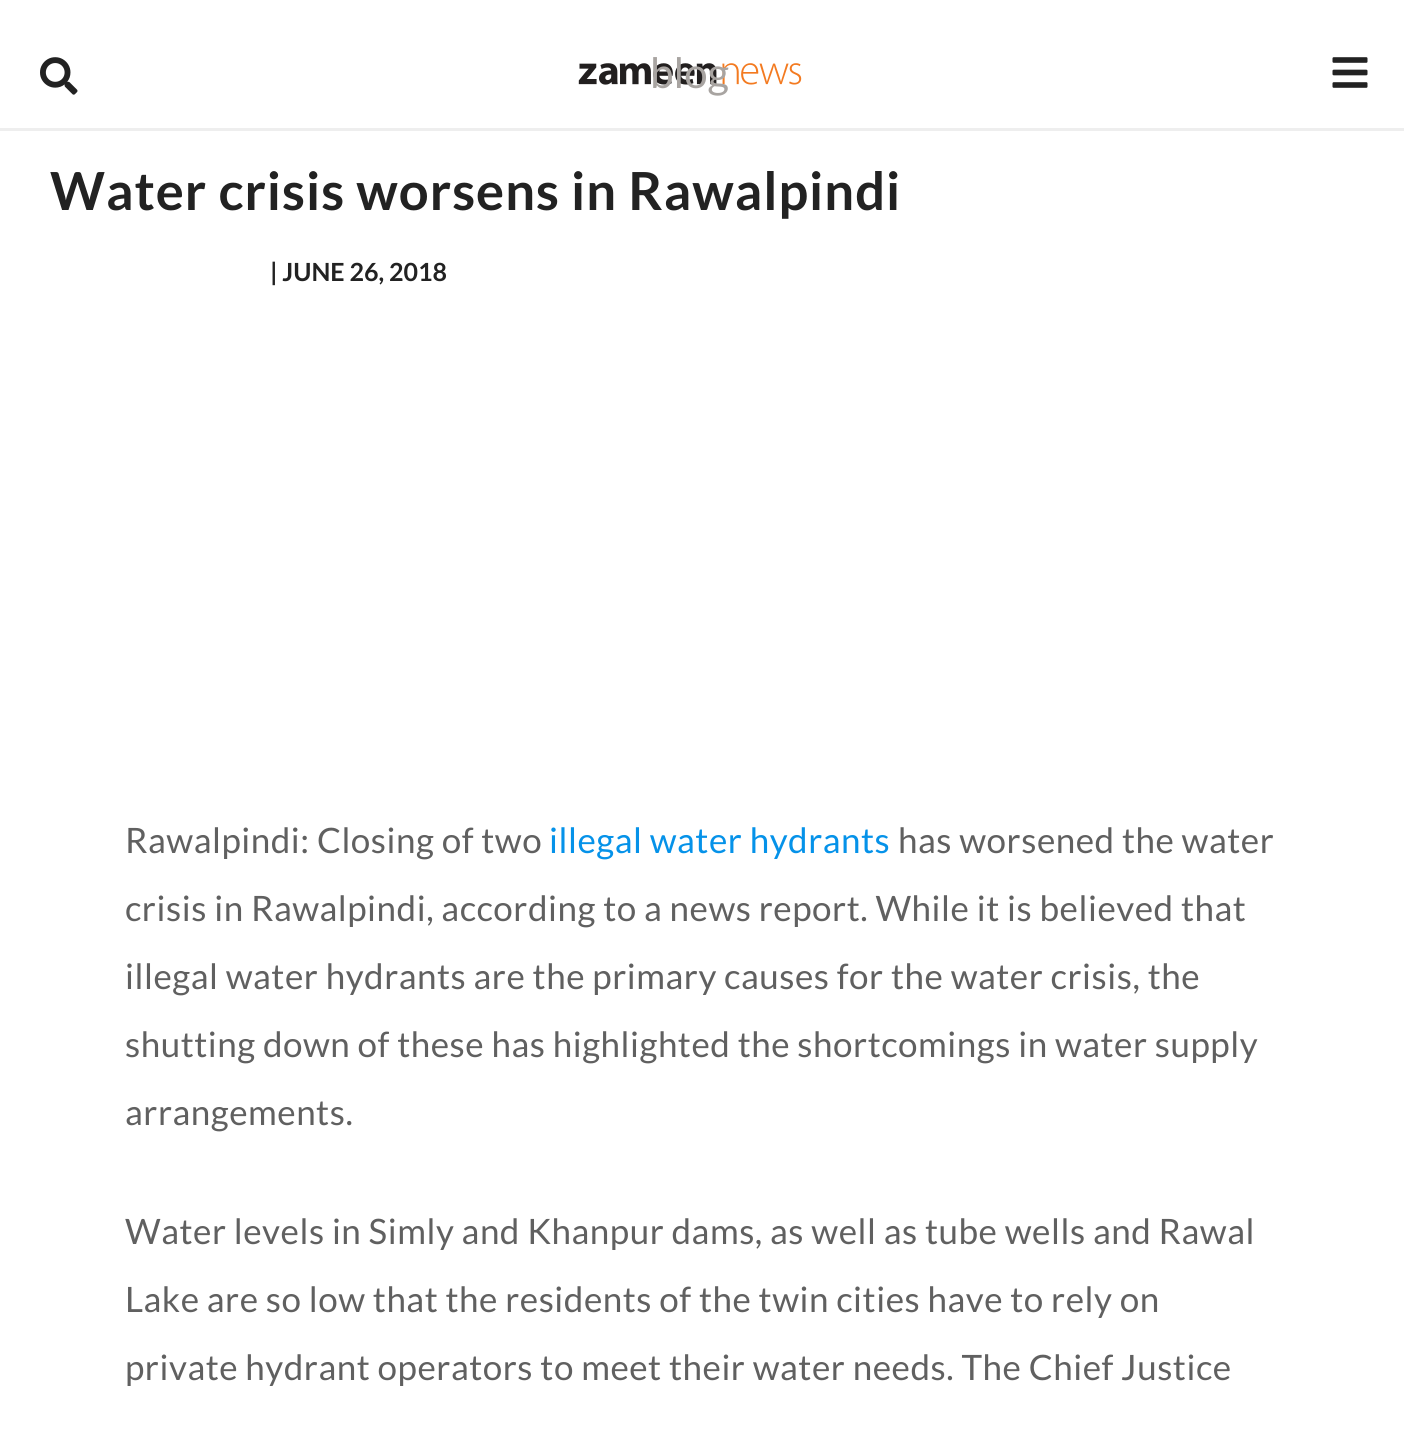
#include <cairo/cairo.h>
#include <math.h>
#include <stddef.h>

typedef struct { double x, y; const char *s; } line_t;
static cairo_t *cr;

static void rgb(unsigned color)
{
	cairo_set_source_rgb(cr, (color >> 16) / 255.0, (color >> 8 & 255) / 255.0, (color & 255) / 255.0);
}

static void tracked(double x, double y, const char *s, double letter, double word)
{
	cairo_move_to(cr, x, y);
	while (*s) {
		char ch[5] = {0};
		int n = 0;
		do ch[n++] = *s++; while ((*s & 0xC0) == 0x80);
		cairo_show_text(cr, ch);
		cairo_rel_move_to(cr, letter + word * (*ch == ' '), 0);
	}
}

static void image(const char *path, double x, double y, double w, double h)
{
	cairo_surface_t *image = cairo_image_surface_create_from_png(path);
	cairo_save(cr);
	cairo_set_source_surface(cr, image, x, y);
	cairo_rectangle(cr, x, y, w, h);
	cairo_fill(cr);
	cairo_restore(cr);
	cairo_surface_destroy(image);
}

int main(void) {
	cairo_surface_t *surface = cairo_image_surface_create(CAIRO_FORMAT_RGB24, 1404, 1436);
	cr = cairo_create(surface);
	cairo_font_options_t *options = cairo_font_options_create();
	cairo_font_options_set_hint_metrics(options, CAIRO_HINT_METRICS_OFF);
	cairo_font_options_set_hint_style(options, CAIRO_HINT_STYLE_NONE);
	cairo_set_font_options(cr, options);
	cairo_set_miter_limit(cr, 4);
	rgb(0xffffff);
	cairo_paint(cr);
	rgb(0xeeeeee);
	cairo_rectangle(cr, 0, 128, 1404, 3);
	cairo_fill(cr);
	image("img/1.png", 40, 57, 38, 38);
	image("img/2.png", 578, 63, 224, 22);
	image("img/3.png", 1332, 57, 36, 31);
	cairo_select_font_face(cr, "Lato", CAIRO_FONT_SLANT_NORMAL, CAIRO_FONT_WEIGHT_NORMAL);
	cairo_set_font_size(cr, 42);
	rgb(0xa8a4a1);
	cairo_move_to(cr, 650, 88);
	cairo_show_text(cr, "blog");
	cairo_select_font_face(cr, "Lato", CAIRO_FONT_SLANT_NORMAL, CAIRO_FONT_WEIGHT_BOLD);
	cairo_set_font_size(cr, 52.5);
	rgb(0x222222);
	tracked(50, 210, "Water crisis worsens in Rawalpindi", 1, 0);
	cairo_set_font_size(cr, 25);
	cairo_move_to(cr, 270, 281);
	cairo_show_text(cr, "| JUNE 26, 2018");
	cairo_select_font_face(cr, "Lato", CAIRO_FONT_SLANT_NORMAL, CAIRO_FONT_WEIGHT_NORMAL);
	cairo_set_font_size(cr, 35);
	rgb(0x606060);
	tracked(125, 853, "Rawalpindi: Closing of two", 0.52, 0);
	rgb(0x0592e9);
	tracked(549, 853, "illegal water hydrants", 0.52, 0);
	rgb(0x606060);
	{
		static const line_t items[] = {
			{898, 853, "has worsened the water"},
			{125, 921, "crisis in Rawalpindi, according to a news report. While it is believed that"},
			{125, 989, "illegal water hydrants are the primary causes for the water crisis, the"},
			{125, 1057, "shutting down of these has highlighted the shortcomings in water supply"},
			{125, 1125, "arrangements."},
			{125, 1244, "Water levels in Simly and Khanpur dams, as well as tube wells and Rawal"},
			{125, 1312, "Lake are so low that the residents of the twin cities have to rely on"},
			{125, 1380, "private hydrant operators to meet their water needs. The Chief Justice"},
		};
		for (size_t i = 0; i < sizeof items / sizeof *items; i++) {
			tracked(items[i].x, items[i].y, items[i].s, 0.52, 0);
		}
	}
	cairo_surface_write_to_png(surface, "page.png");
	cairo_font_options_destroy(options);
	cairo_destroy(cr);
	cairo_surface_destroy(surface);
	return 0;
}
